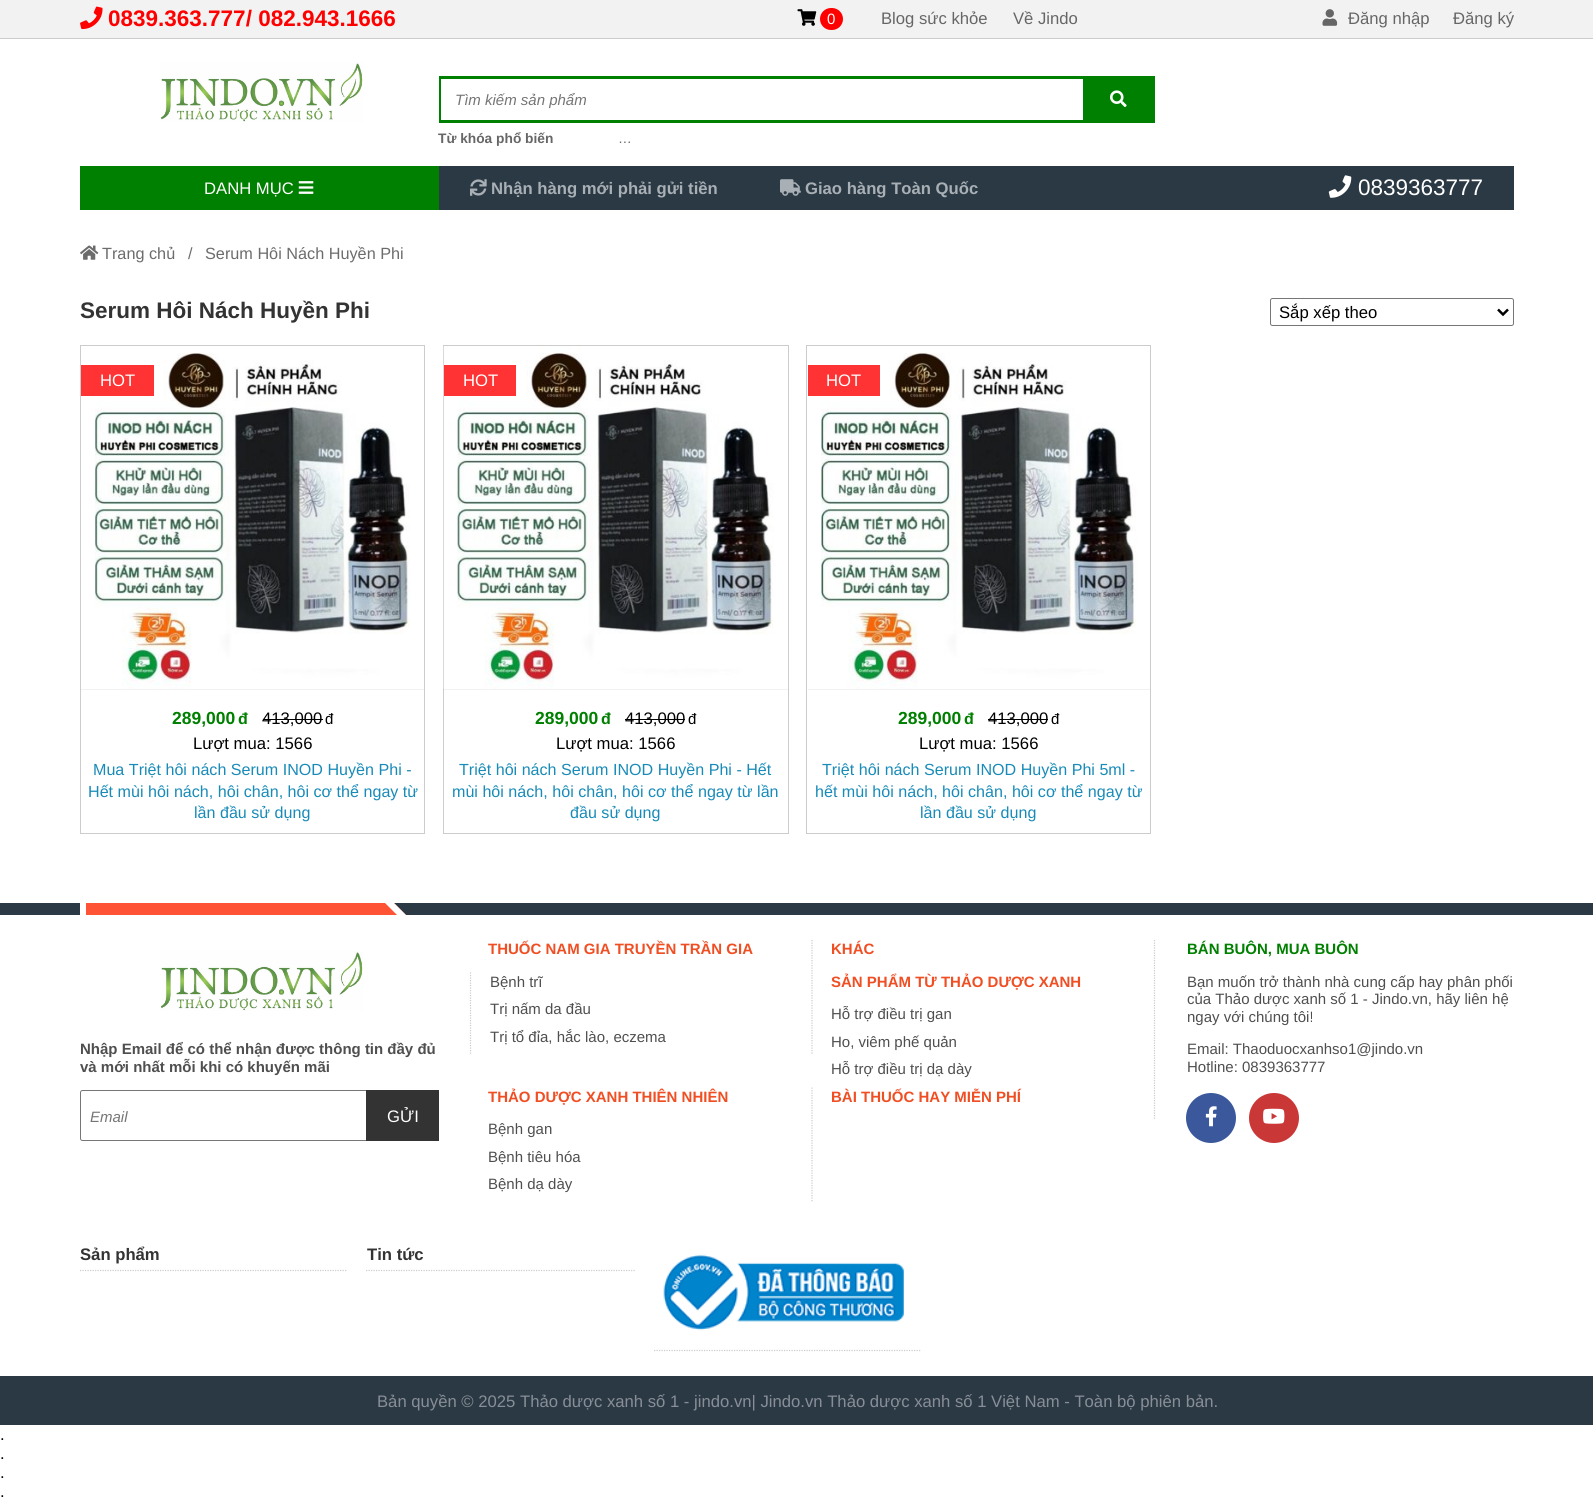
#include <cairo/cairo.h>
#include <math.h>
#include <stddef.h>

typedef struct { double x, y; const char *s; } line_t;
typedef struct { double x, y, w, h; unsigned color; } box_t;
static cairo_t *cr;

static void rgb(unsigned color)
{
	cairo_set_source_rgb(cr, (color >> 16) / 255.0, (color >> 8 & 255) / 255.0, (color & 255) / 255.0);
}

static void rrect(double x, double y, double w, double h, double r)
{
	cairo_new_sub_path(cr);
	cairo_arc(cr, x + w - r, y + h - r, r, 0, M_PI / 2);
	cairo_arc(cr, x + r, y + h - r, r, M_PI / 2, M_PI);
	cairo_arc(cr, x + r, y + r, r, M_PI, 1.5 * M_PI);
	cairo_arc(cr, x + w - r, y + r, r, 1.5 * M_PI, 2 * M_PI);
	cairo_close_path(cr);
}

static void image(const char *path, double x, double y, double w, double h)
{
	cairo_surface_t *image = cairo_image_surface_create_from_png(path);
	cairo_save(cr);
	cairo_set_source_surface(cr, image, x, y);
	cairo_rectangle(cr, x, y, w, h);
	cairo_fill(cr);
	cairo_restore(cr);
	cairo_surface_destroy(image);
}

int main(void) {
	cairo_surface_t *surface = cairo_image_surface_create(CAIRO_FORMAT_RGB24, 1593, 1508);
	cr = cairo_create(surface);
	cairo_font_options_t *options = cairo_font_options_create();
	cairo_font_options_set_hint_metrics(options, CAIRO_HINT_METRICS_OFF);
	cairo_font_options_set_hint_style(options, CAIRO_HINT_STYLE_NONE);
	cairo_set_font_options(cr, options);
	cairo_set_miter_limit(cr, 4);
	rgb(0xffffff);
	cairo_paint(cr);
	rgb(0xf2f2f2);
	cairo_rectangle(cr, 0, 0, 1593, 38);
	cairo_fill(cr);
	rgb(0xcccccc);
	cairo_rectangle(cr, 0, 38, 1593, 1);
	cairo_fill(cr);
	image("img/1.png", 80, 6, 23, 24);
	image("img/2.png", 797, 9, 20, 17);
	rgb(0xff0000);
	rrect(820, 8, 23, 22, 11);
	cairo_fill(cr);
	image("img/3.png", 1322, 9, 16, 17);
	image("img/4.png", 160, 62, 203, 60);
	cairo_rectangle(cr, 440.5, 77.5, 713, 44);
	rgb(0x008000);
	cairo_set_line_width(cr, 3);
	cairo_stroke(cr);
	rgb(0xffffff);
	cairo_rectangle(cr, 441, 79, 1, 41);
	cairo_fill(cr);
	rgb(0x008000);
	cairo_rectangle(cr, 1083, 79, 69, 41);
	cairo_fill(cr);
	image("img/5.png", 1110, 90, 17, 17);
	cairo_rectangle(cr, 80, 166, 359, 44);
	cairo_fill(cr);
	image("img/6.png", 298, 181, 16, 13);
	rgb(0x2b3944);
	cairo_rectangle(cr, 439, 166, 1075, 44);
	cairo_fill(cr);
	image("img/7.png", 470, 179, 17, 17);
	image("img/8.png", 780, 179, 21, 17);
	image("img/9.png", 1328, 175, 24, 23);
	image("img/10.png", 80, 245, 19, 15);
	rrect(1270.5, 298.5, 243, 27, 2);
	rgb(0x767676);
	cairo_set_line_width(cr, 1);
	cairo_stroke(cr);
	cairo_new_path(cr);
	cairo_move_to(cr, 1498, 309.5);
	cairo_line_to(cr, 1503, 314.5);
	cairo_line_to(cr, 1508, 309.5);
	rgb(0x000000);
	cairo_set_line_width(cr, 2.5);
	cairo_stroke(cr);
	cairo_rectangle(cr, 80.5, 345.5, 344, 488);
	rgb(0xcccccc);
	cairo_set_line_width(cr, 1);
	cairo_stroke(cr);
	image("img/11.png", 94, 352, 316, 337);
	{
		static const box_t items[] = {
			{81, 689, 343, 1, 0xf2f2f2},
			{81, 365, 73, 31, 0xff3333},
			{263, 719, 60, 1, 0x000000},
		};
		for (size_t i = 0; i < sizeof items / sizeof *items; i++) {
			rgb(items[i].color);
			cairo_rectangle(cr, items[i].x, items[i].y, items[i].w, items[i].h);
			cairo_fill(cr);
		}
	}
	cairo_rectangle(cr, 443.5, 345.5, 345, 488);
	rgb(0xcccccc);
	cairo_stroke(cr);
	image("img/12.png", 443, 346, 331, 343);
	{
		static const box_t items[] = {
			{444, 689, 344, 1, 0xf2f2f2},
			{444, 365, 72, 31, 0xff3333},
			{625, 719, 60, 1, 0x000000},
		};
		for (size_t i = 0; i < sizeof items / sizeof *items; i++) {
			rgb(items[i].color);
			cairo_rectangle(cr, items[i].x, items[i].y, items[i].w, items[i].h);
			cairo_fill(cr);
		}
	}
	cairo_rectangle(cr, 806.5, 345.5, 344, 488);
	rgb(0xcccccc);
	cairo_stroke(cr);
	image("img/13.png", 820, 352, 317, 337);
	{
		static const box_t items[] = {
			{808, 689, 342, 1, 0xf2f2f2},
			{808, 365, 72, 31, 0xff3333},
			{988, 719, 60, 1, 0x000000},
			{0, 903, 1593, 12, 0x2b3944},
			{86, 903, 292, 12, 0xff5335},
			{80, 903, 6, 12, 0xffffff},
		};
		for (size_t i = 0; i < sizeof items / sizeof *items; i++) {
			rgb(items[i].color);
			cairo_rectangle(cr, items[i].x, items[i].y, items[i].w, items[i].h);
			cairo_fill(cr);
		}
	}
	cairo_save(cr);
	cairo_rectangle(cr, 0, 903, 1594, 12);
	cairo_clip(cr);
	rgb(0xff5335);
	cairo_new_path(cr);
	cairo_move_to(cr, 386, 895);
	cairo_line_to(cr, 421, 930);
	cairo_line_to(cr, 386, 966);
	cairo_line_to(cr, 351, 930);
	cairo_close_path(cr);
	cairo_fill(cr);
	rgb(0xffffff);
	cairo_new_path(cr);
	cairo_move_to(cr, 386, 895);
	cairo_line_to(cr, 421.5, 930.5);
	cairo_line_to(cr, 417, 935);
	cairo_line_to(cr, 381.5, 899.5);
	cairo_close_path(cr);
	cairo_fill(cr);
	cairo_restore(cr);
	cairo_new_path(cr);
	cairo_move_to(cr, 812, 940);
	cairo_line_to(cr, 812, 972.5);
	rgb(0xcccccc);
	cairo_set_line_width(cr, 1.2);
	cairo_set_dash(cr, (double[]){1.25, 1.25}, 2, 0);
	cairo_stroke(cr);
	cairo_new_path(cr);
	cairo_move_to(cr, 470.5, 972.5);
	cairo_line_to(cr, 470.5, 1055);
	cairo_stroke(cr);
	cairo_new_path(cr);
	cairo_move_to(cr, 812, 972.5);
	cairo_line_to(cr, 812, 1000);
	cairo_move_to(cr, 812, 1000);
	cairo_line_to(cr, 812, 1027.5);
	cairo_stroke(cr);
	cairo_new_path(cr);
	cairo_move_to(cr, 812, 1027.5);
	cairo_line_to(cr, 812, 1055);
	cairo_stroke(cr);
	cairo_new_path(cr);
	cairo_move_to(cr, 1154.5, 940);
	cairo_line_to(cr, 1154.5, 972.5);
	cairo_stroke(cr);
	cairo_new_path(cr);
	cairo_move_to(cr, 1154.5, 972.5);
	cairo_line_to(cr, 1154.5, 1005);
	cairo_move_to(cr, 1154.5, 1005);
	cairo_line_to(cr, 1154.5, 1032.5);
	cairo_stroke(cr);
	cairo_new_path(cr);
	cairo_move_to(cr, 1154.5, 1032.5);
	cairo_line_to(cr, 1154.5, 1060);
	cairo_move_to(cr, 1154.5, 1060);
	cairo_line_to(cr, 1154.5, 1087.5);
	cairo_stroke(cr);
	cairo_new_path(cr);
	cairo_move_to(cr, 812, 1087.5);
	cairo_line_to(cr, 812, 1120);
	cairo_move_to(cr, 812, 1120);
	cairo_line_to(cr, 812, 1147.5);
	cairo_stroke(cr);
	cairo_new_path(cr);
	cairo_move_to(cr, 812, 1147.5);
	cairo_line_to(cr, 812, 1175);
	cairo_move_to(cr, 812, 1175);
	cairo_line_to(cr, 812, 1202.5);
	cairo_stroke(cr);
	cairo_new_path(cr);
	cairo_move_to(cr, 1154.5, 1087.5);
	cairo_line_to(cr, 1154.5, 1120);
	cairo_stroke(cr);
	rgb(0x3a589b);
	cairo_arc(cr, 1211, 1118, 25, 0, 2 * M_PI);
	cairo_fill(cr);
	image("img/14.png", 1205, 1106, 12, 21);
	rgb(0xca3737);
	cairo_arc(cr, 1274, 1118, 25, 0, 2 * M_PI);
	cairo_fill(cr);
	image("img/15.png", 1263, 1108, 22, 16);
	image("img/16.png", 160, 951, 203, 60);
	rrect(80.5, 1090.5, 300, 50, 2);
	rgb(0x767676);
	cairo_set_line_width(cr, 1);
	cairo_set_dash(cr, NULL, 0, 0);
	cairo_stroke(cr);
	rgb(0x333333);
	cairo_rectangle(cr, 366, 1090, 73, 51);
	cairo_fill(cr);
	cairo_new_path(cr);
	cairo_move_to(cr, 80, 1270.5);
	cairo_line_to(cr, 347.5, 1270.5);
	rgb(0xcccccc);
	cairo_set_line_width(cr, 1.2);
	cairo_set_dash(cr, (double[]){1.25, 1.25}, 2, 0);
	cairo_stroke(cr);
	cairo_new_path(cr);
	cairo_move_to(cr, 366, 1270.5);
	cairo_line_to(cr, 635, 1270.5);
	cairo_stroke(cr);
	cairo_new_path(cr);
	cairo_move_to(cr, 654, 1350.5);
	cairo_line_to(cr, 921, 1350.5);
	cairo_stroke(cr);
	image("img/17.png", 663, 1254, 241, 77);
	rgb(0x2b3944);
	cairo_rectangle(cr, 0, 1376, 1593, 49);
	cairo_fill(cr);
	cairo_select_font_face(cr, "Liberation Sans", CAIRO_FONT_SLANT_NORMAL, CAIRO_FONT_WEIGHT_BOLD);
	cairo_set_font_size(cr, 22.5);
	rgb(0xff0000);
	cairo_move_to(cr, 108, 26);
	cairo_show_text(cr, "0839.363.777/ 082.943.1666");
	cairo_select_font_face(cr, "Liberation Sans", CAIRO_FONT_SLANT_NORMAL, CAIRO_FONT_WEIGHT_NORMAL);
	cairo_set_font_size(cr, 15);
	rgb(0xffffff);
	cairo_move_to(cr, 827, 24);
	cairo_show_text(cr, "0");
	cairo_set_font_size(cr, 16.67);
	rgb(0x666666);
	{
		static const line_t items[] = {
			{881, 24, "Blog sức khỏe"},
			{1013, 24, "Về Jindo"},
			{1348, 24, "Đăng nhập"},
			{1453, 24, "Đăng ký"},
		};
		for (size_t i = 0; i < sizeof items / sizeof *items; i++) {
			cairo_move_to(cr, items[i].x, items[i].y);
			cairo_show_text(cr, items[i].s);
		}
	}
	cairo_select_font_face(cr, "Liberation Sans", CAIRO_FONT_SLANT_ITALIC, CAIRO_FONT_WEIGHT_NORMAL);
	cairo_set_font_size(cr, 15);
	rgb(0x757575);
	cairo_move_to(cr, 455, 105);
	cairo_show_text(cr, "Tìm kiếm sản phẩm");
	cairo_select_font_face(cr, "Liberation Sans", CAIRO_FONT_SLANT_NORMAL, CAIRO_FONT_WEIGHT_BOLD);
	cairo_set_font_size(cr, 13.75);
	rgb(0x666666);
	cairo_move_to(cr, 438, 143);
	cairo_show_text(cr, "Từ khóa phổ biến");
	cairo_select_font_face(cr, "Liberation Sans", CAIRO_FONT_SLANT_NORMAL, CAIRO_FONT_WEIGHT_NORMAL);
	cairo_move_to(cr, 618, 143);
	cairo_show_text(cr, "…");
	cairo_set_font_size(cr, 16.67);
	rgb(0xffffff);
	cairo_move_to(cr, 204, 194);
	cairo_show_text(cr, "DANH MỤC");
	cairo_select_font_face(cr, "Liberation Sans", CAIRO_FONT_SLANT_NORMAL, CAIRO_FONT_WEIGHT_BOLD);
	rgb(0xa8afb5);
	cairo_move_to(cr, 491, 194);
	cairo_show_text(cr, "Nhận hàng mới phải gửi tiền");
	cairo_move_to(cr, 805, 194);
	cairo_show_text(cr, "Giao hàng Toàn Quốc");
	cairo_select_font_face(cr, "Liberation Sans", CAIRO_FONT_SLANT_NORMAL, CAIRO_FONT_WEIGHT_NORMAL);
	cairo_set_font_size(cr, 22.5);
	rgb(0xffffff);
	cairo_move_to(cr, 1358, 195);
	cairo_show_text(cr, "0839363777");
	cairo_set_font_size(cr, 16.25);
	rgb(0x6c6c6c);
	{
		static const line_t items[] = {
			{102, 259, "Trang chủ"},
			{188, 259, "/"},
			{205, 259, "Serum Hôi Nách Huyền Phi"},
		};
		for (size_t i = 0; i < sizeof items / sizeof *items; i++) {
			cairo_move_to(cr, items[i].x, items[i].y);
			cairo_show_text(cr, items[i].s);
		}
	}
	cairo_select_font_face(cr, "Liberation Sans", CAIRO_FONT_SLANT_NORMAL, CAIRO_FONT_WEIGHT_BOLD);
	cairo_set_font_size(cr, 22.5);
	rgb(0x333333);
	cairo_move_to(cr, 80, 318);
	cairo_show_text(cr, "Serum Hôi Nách Huyền Phi");
	cairo_select_font_face(cr, "Liberation Sans", CAIRO_FONT_SLANT_NORMAL, CAIRO_FONT_WEIGHT_NORMAL);
	cairo_set_font_size(cr, 16.67);
	rgb(0x000000);
	cairo_move_to(cr, 1279, 318);
	cairo_show_text(cr, "Sắp xếp theo");
	rgb(0xffffff);
	cairo_move_to(cr, 100, 386);
	cairo_show_text(cr, "HOT");
	cairo_select_font_face(cr, "Liberation Sans", CAIRO_FONT_SLANT_NORMAL, CAIRO_FONT_WEIGHT_BOLD);
	cairo_set_font_size(cr, 17.5);
	rgb(0x008000);
	cairo_move_to(cr, 172, 724);
	cairo_show_text(cr, "289,000");
	cairo_set_font_size(cr, 16);
	cairo_move_to(cr, 238, 724);
	cairo_show_text(cr, "đ");
	cairo_select_font_face(cr, "Liberation Sans", CAIRO_FONT_SLANT_NORMAL, CAIRO_FONT_WEIGHT_NORMAL);
	cairo_set_font_size(cr, 16.67);
	rgb(0x000000);
	cairo_move_to(cr, 262, 724);
	cairo_show_text(cr, "413,000");
	cairo_set_font_size(cr, 15);
	cairo_move_to(cr, 325, 724);
	cairo_show_text(cr, "đ");
	cairo_set_font_size(cr, 16.67);
	cairo_move_to(cr, 193, 749);
	cairo_show_text(cr, "Lượt mua: 1566");
	cairo_set_font_size(cr, 16.1);
	rgb(0x188bb8);
	{
		static const line_t items[] = {
			{93, 775, "Mua Triệt hôi nách Serum INOD Huyền Phi -"},
			{88, 797, "Hết mùi hôi nách, hôi chân, hôi cơ thể ngay từ"},
			{194, 818, "lần đầu sử dụng"},
		};
		for (size_t i = 0; i < sizeof items / sizeof *items; i++) {
			cairo_move_to(cr, items[i].x, items[i].y);
			cairo_show_text(cr, items[i].s);
		}
	}
	cairo_set_font_size(cr, 16.67);
	rgb(0xffffff);
	cairo_move_to(cr, 463, 386);
	cairo_show_text(cr, "HOT");
	cairo_select_font_face(cr, "Liberation Sans", CAIRO_FONT_SLANT_NORMAL, CAIRO_FONT_WEIGHT_BOLD);
	cairo_set_font_size(cr, 17.5);
	rgb(0x008000);
	cairo_move_to(cr, 535, 724);
	cairo_show_text(cr, "289,000");
	cairo_set_font_size(cr, 16);
	cairo_move_to(cr, 601, 724);
	cairo_show_text(cr, "đ");
	cairo_select_font_face(cr, "Liberation Sans", CAIRO_FONT_SLANT_NORMAL, CAIRO_FONT_WEIGHT_NORMAL);
	cairo_set_font_size(cr, 16.67);
	rgb(0x000000);
	cairo_move_to(cr, 625, 724);
	cairo_show_text(cr, "413,000");
	cairo_set_font_size(cr, 15);
	cairo_move_to(cr, 688, 724);
	cairo_show_text(cr, "đ");
	cairo_set_font_size(cr, 16.67);
	cairo_move_to(cr, 556, 749);
	cairo_show_text(cr, "Lượt mua: 1566");
	cairo_set_font_size(cr, 16.1);
	rgb(0x188bb8);
	{
		static const line_t items[] = {
			{459, 775, "Triệt hôi nách Serum INOD Huyền Phi - Hết"},
			{452, 797, "mùi hôi nách, hôi chân, hôi cơ thể ngay từ lần"},
			{570, 818, "đầu sử dụng"},
		};
		for (size_t i = 0; i < sizeof items / sizeof *items; i++) {
			cairo_move_to(cr, items[i].x, items[i].y);
			cairo_show_text(cr, items[i].s);
		}
	}
	cairo_set_font_size(cr, 16.67);
	rgb(0xffffff);
	cairo_move_to(cr, 826, 386);
	cairo_show_text(cr, "HOT");
	cairo_select_font_face(cr, "Liberation Sans", CAIRO_FONT_SLANT_NORMAL, CAIRO_FONT_WEIGHT_BOLD);
	cairo_set_font_size(cr, 17.5);
	rgb(0x008000);
	cairo_move_to(cr, 898, 724);
	cairo_show_text(cr, "289,000");
	cairo_set_font_size(cr, 16);
	cairo_move_to(cr, 964, 724);
	cairo_show_text(cr, "đ");
	cairo_select_font_face(cr, "Liberation Sans", CAIRO_FONT_SLANT_NORMAL, CAIRO_FONT_WEIGHT_NORMAL);
	cairo_set_font_size(cr, 16.67);
	rgb(0x000000);
	cairo_move_to(cr, 988, 724);
	cairo_show_text(cr, "413,000");
	cairo_set_font_size(cr, 15);
	cairo_move_to(cr, 1051, 724);
	cairo_show_text(cr, "đ");
	cairo_set_font_size(cr, 16.67);
	cairo_move_to(cr, 919, 749);
	cairo_show_text(cr, "Lượt mua: 1566");
	cairo_set_font_size(cr, 16.1);
	rgb(0x188bb8);
	{
		static const line_t items[] = {
			{822, 775, "Triệt hôi nách Serum INOD Huyền Phi 5ml -"},
			{815, 797, "hết mùi hôi nách, hôi chân, hôi cơ thể ngay từ"},
			{920, 818, "lần đầu sử dụng"},
		};
		for (size_t i = 0; i < sizeof items / sizeof *items; i++) {
			cairo_move_to(cr, items[i].x, items[i].y);
			cairo_show_text(cr, items[i].s);
		}
	}
	cairo_select_font_face(cr, "Liberation Sans", CAIRO_FONT_SLANT_NORMAL, CAIRO_FONT_WEIGHT_BOLD);
	cairo_set_font_size(cr, 15);
	rgb(0xf04e23);
	cairo_move_to(cr, 488, 954);
	cairo_show_text(cr, "THUỐC NAM GIA TRUYỀN TRẦN GIA");
	cairo_select_font_face(cr, "Liberation Sans", CAIRO_FONT_SLANT_NORMAL, CAIRO_FONT_WEIGHT_NORMAL);
	rgb(0x4f4f4f);
	{
		static const line_t items[] = {
			{490, 987, "Bệnh trĩ"},
			{490, 1014, "Trị nấm da đầu"},
			{490, 1042, "Trị tổ đỉa, hắc lào, eczema"},
		};
		for (size_t i = 0; i < sizeof items / sizeof *items; i++) {
			cairo_move_to(cr, items[i].x, items[i].y);
			cairo_show_text(cr, items[i].s);
		}
	}
	cairo_select_font_face(cr, "Liberation Sans", CAIRO_FONT_SLANT_NORMAL, CAIRO_FONT_WEIGHT_BOLD);
	rgb(0xf04e23);
	cairo_move_to(cr, 831, 954);
	cairo_show_text(cr, "KHÁC");
	cairo_move_to(cr, 831, 987);
	cairo_show_text(cr, "SẢN PHẨM TỪ THẢO DƯỢC XANH");
	cairo_select_font_face(cr, "Liberation Sans", CAIRO_FONT_SLANT_NORMAL, CAIRO_FONT_WEIGHT_NORMAL);
	rgb(0x4f4f4f);
	{
		static const line_t items[] = {
			{831, 1019, "Hỗ trợ điều trị gan"},
			{831, 1047, "Ho, viêm phế quản"},
			{831, 1074, "Hỗ trợ điều trị dạ dày"},
		};
		for (size_t i = 0; i < sizeof items / sizeof *items; i++) {
			cairo_move_to(cr, items[i].x, items[i].y);
			cairo_show_text(cr, items[i].s);
		}
	}
	cairo_select_font_face(cr, "Liberation Sans", CAIRO_FONT_SLANT_NORMAL, CAIRO_FONT_WEIGHT_BOLD);
	rgb(0xf04e23);
	cairo_move_to(cr, 488, 1102);
	cairo_show_text(cr, "THẢO DƯỢC XANH THIÊN NHIÊN");
	cairo_select_font_face(cr, "Liberation Sans", CAIRO_FONT_SLANT_NORMAL, CAIRO_FONT_WEIGHT_NORMAL);
	rgb(0x4f4f4f);
	{
		static const line_t items[] = {
			{488, 1134, "Bệnh gan"},
			{488, 1162, "Bệnh tiêu hóa"},
			{488, 1189, "Bệnh dạ dày"},
		};
		for (size_t i = 0; i < sizeof items / sizeof *items; i++) {
			cairo_move_to(cr, items[i].x, items[i].y);
			cairo_show_text(cr, items[i].s);
		}
	}
	cairo_select_font_face(cr, "Liberation Sans", CAIRO_FONT_SLANT_NORMAL, CAIRO_FONT_WEIGHT_BOLD);
	rgb(0xf04e23);
	cairo_move_to(cr, 831, 1102);
	cairo_show_text(cr, "BÀI THUỐC HAY MIỄN PHÍ");
	rgb(0x008000);
	cairo_move_to(cr, 1187, 954);
	cairo_show_text(cr, "BÁN BUÔN, MUA BUÔN");
	cairo_select_font_face(cr, "Liberation Sans", CAIRO_FONT_SLANT_NORMAL, CAIRO_FONT_WEIGHT_NORMAL);
	rgb(0x4f4f4f);
	{
		static const line_t items[] = {
			{1187, 987, "Bạn muốn trở thành nhà cung cấp hay phân phối"},
			{1187, 1004, "của Thảo dược xanh số 1 - Jindo.vn, hãy liên hệ"},
			{1187, 1022, "ngay với chúng tôi!"},
			{1187, 1054, "Email: Thaoduocxanhso1@jindo.vn"},
			{1187, 1072, "Hotline: 0839363777"},
		};
		for (size_t i = 0; i < sizeof items / sizeof *items; i++) {
			cairo_move_to(cr, items[i].x, items[i].y);
			cairo_show_text(cr, items[i].s);
		}
	}
	cairo_select_font_face(cr, "Liberation Sans", CAIRO_FONT_SLANT_NORMAL, CAIRO_FONT_WEIGHT_BOLD);
	cairo_move_to(cr, 80, 1054);
	cairo_show_text(cr, "Nhập Email để có thể nhận được thông tin đầy đủ");
	cairo_move_to(cr, 80, 1072);
	cairo_show_text(cr, "và mới nhất mỗi khi có khuyến mãi");
	cairo_select_font_face(cr, "Liberation Sans", CAIRO_FONT_SLANT_ITALIC, CAIRO_FONT_WEIGHT_NORMAL);
	rgb(0x757575);
	cairo_move_to(cr, 90, 1122);
	cairo_show_text(cr, "Email");
	cairo_select_font_face(cr, "Liberation Sans", CAIRO_FONT_SLANT_NORMAL, CAIRO_FONT_WEIGHT_NORMAL);
	cairo_set_font_size(cr, 16.67);
	rgb(0xffffff);
	cairo_move_to(cr, 387, 1122);
	cairo_show_text(cr, "GỬI");
	cairo_select_font_face(cr, "Liberation Sans", CAIRO_FONT_SLANT_NORMAL, CAIRO_FONT_WEIGHT_BOLD);
	rgb(0x333333);
	cairo_move_to(cr, 80, 1260);
	cairo_show_text(cr, "Sản phẩm");
	cairo_move_to(cr, 367, 1260);
	cairo_show_text(cr, "Tin tức");
	cairo_select_font_face(cr, "Liberation Sans", CAIRO_FONT_SLANT_NORMAL, CAIRO_FONT_WEIGHT_NORMAL);
	rgb(0x888e98);
	cairo_move_to(cr, 377, 1407);
	cairo_show_text(cr, "Bản quyền © 2025 Thảo dược xanh số 1 - jindo.vn| Jindo.vn Thảo dược xanh số 1 Việt Nam - Toàn bộ phiên bản.");
	rgb(0x000000);
	{
		static const line_t items[] = {
			{0, 1440, "."},
			{0, 1459, "."},
			{0, 1478, "."},
			{0, 1497, "."},
		};
		for (size_t i = 0; i < sizeof items / sizeof *items; i++) {
			cairo_move_to(cr, items[i].x, items[i].y);
			cairo_show_text(cr, items[i].s);
		}
	}
	cairo_surface_write_to_png(surface, "page.png");
	cairo_font_options_destroy(options);
	cairo_destroy(cr);
	cairo_surface_destroy(surface);
	return 0;
}
